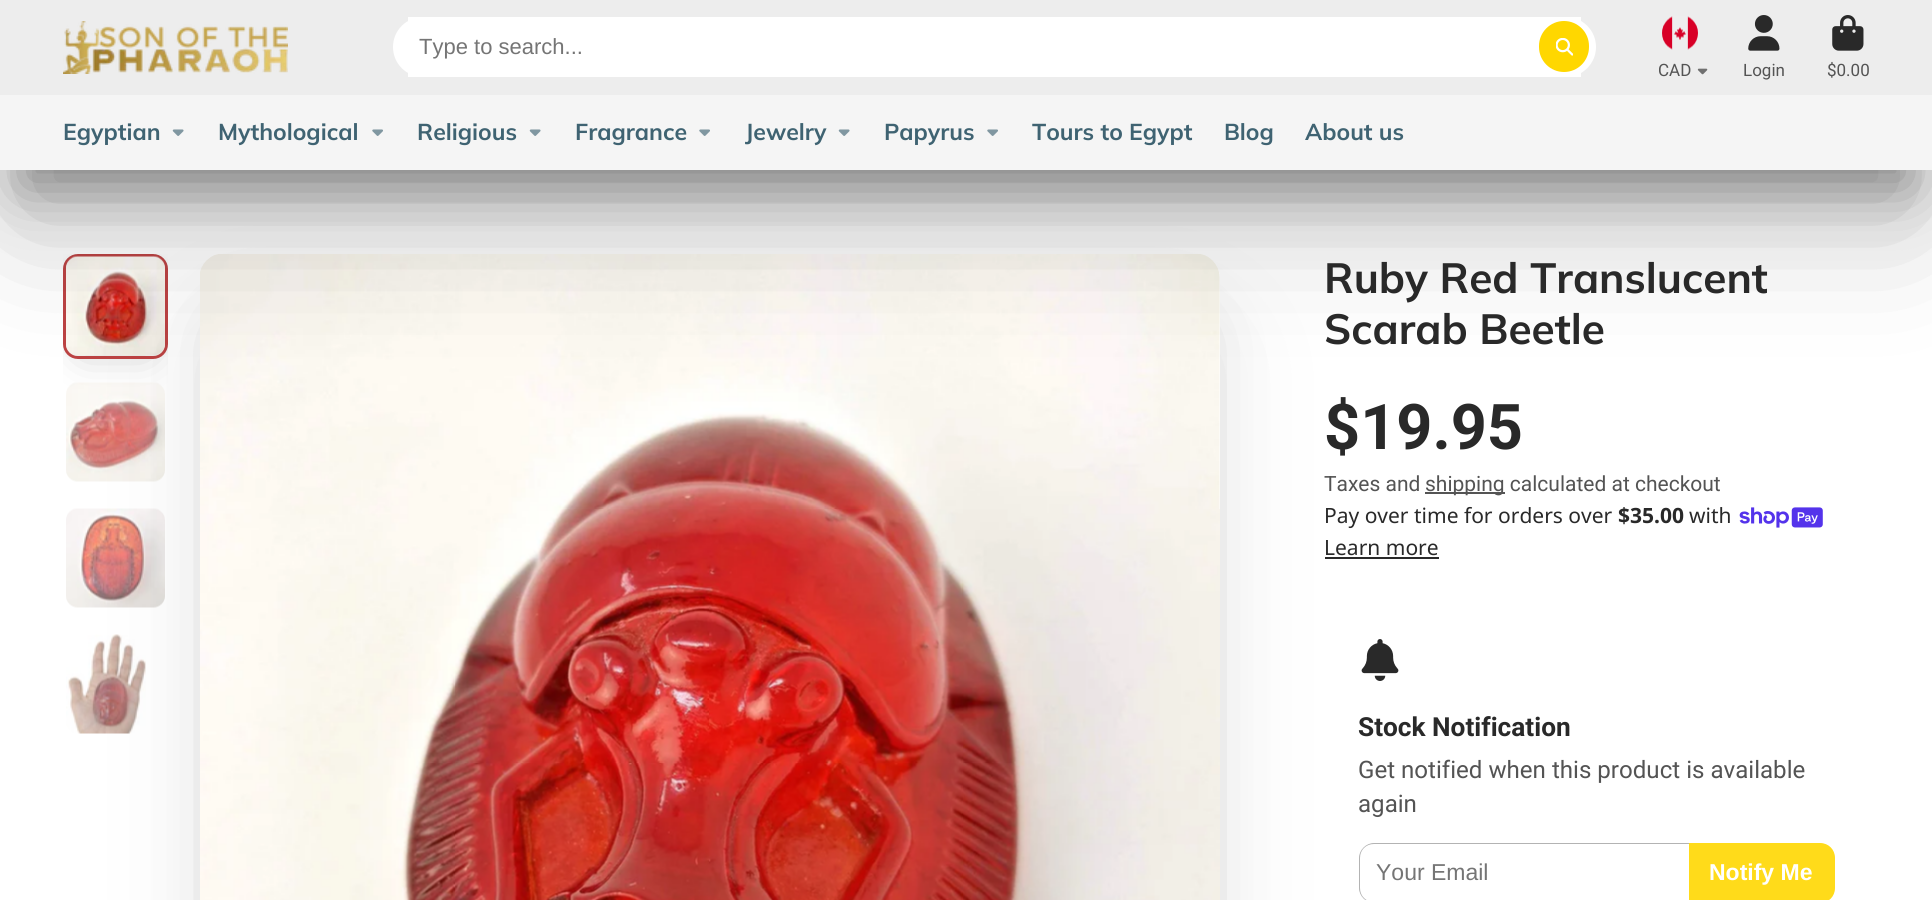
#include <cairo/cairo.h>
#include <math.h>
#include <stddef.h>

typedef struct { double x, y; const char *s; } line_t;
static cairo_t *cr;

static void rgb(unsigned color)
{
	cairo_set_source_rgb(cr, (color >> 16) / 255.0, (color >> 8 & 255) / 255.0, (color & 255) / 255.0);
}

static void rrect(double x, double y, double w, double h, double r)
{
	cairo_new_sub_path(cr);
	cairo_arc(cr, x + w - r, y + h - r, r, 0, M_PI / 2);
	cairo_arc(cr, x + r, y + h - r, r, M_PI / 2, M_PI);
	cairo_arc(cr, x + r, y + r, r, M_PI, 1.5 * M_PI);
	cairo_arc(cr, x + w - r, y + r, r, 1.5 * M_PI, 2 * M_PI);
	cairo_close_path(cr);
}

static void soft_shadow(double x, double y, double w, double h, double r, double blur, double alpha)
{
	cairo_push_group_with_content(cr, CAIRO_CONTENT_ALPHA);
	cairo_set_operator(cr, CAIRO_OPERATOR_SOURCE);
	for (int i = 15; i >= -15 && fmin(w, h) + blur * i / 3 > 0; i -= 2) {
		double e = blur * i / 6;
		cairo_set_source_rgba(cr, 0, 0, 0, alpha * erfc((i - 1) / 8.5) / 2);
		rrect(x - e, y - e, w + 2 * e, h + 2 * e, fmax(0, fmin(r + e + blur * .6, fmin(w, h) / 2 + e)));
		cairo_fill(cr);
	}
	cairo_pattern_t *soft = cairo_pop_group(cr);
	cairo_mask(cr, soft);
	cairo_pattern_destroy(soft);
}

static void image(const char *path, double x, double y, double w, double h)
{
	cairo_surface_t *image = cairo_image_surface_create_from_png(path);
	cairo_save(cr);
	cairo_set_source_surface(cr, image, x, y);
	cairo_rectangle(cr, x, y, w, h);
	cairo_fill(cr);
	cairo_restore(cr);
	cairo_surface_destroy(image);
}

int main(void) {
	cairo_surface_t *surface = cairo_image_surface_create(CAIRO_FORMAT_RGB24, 1932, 900);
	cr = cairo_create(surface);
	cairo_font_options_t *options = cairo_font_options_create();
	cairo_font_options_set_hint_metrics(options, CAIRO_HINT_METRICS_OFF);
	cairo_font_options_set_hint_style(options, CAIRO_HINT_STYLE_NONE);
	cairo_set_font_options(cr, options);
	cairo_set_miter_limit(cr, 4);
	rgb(0xffffff);
	cairo_paint(cr);
	cairo_save(cr);
	cairo_rectangle(cr, 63, 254, 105, 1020);
	cairo_clip(cr);
	rgb(0x1c1c1c);
	soft_shadow(84, 285, 63, 63, 0, 21, 0.3);
	cairo_restore(cr);
	rrect(64.5, 255.5, 102, 102, 13.5);
	rgb(0xbc4242);
	cairo_set_line_width(cr, 3);
	cairo_stroke(cr);
	image("img/10.png", 66, 256, 99, 100);
	image("img/11.png", 66, 382, 99, 100);
	image("img/12.png", 66, 508, 99, 100);
	image("img/13.png", 66, 634, 80, 100);
	rgb(0x1c1c1c);
	soft_shadow(239, 333, 942, 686, 0, 39.5, 0.3);
	soft_shadow(227, 345, 967, 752, 0, 65.5, 0.1);
	rgb(0xffffff);
	rrect(200, 254, 1020, 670, 24);
	cairo_fill(cr);
	image("img/9.png", 200, 254, 1020, 646);
	rgb(0x1c1c1c);
	soft_shadow(21, 60, 1890, 128, 0, 29, 0.4);
	soft_shadow(21, 87, 1890, 128, 0, 65.5, 0.3);
	rgb(0xededed);
	cairo_rectangle(cr, 0, 0, 1932, 95);
	cairo_fill(cr);
	image("img/1.png", 63, 21, 225, 53);
	rgb(0xffffff);
	cairo_rectangle(cr, 408, 17, 1173, 60);
	cairo_fill(cr);
	rrect(393, 17, 1203, 60, 30);
	cairo_fill(cr);
	rgb(0xffd700);
	rrect(1539, 21, 50, 51, 25);
	cairo_fill(cr);
	image("img/2.png", 1556, 38, 17, 18);
	image("img/3.png", 1662, 16, 36, 34);
	image("img/4.png", 1697, 68, 11, 7);
	image("img/5.png", 1748, 15, 32, 36);
	image("img/6.png", 1832, 15, 32, 36);
	rgb(0xf5f5f5);
	cairo_rectangle(cr, 0, 95, 1932, 75);
	cairo_fill(cr);
	image("img/7.png", 172, 129, 12, 7);
	image("img/8.png", 372, 129, 11, 7);
	image("img/7.png", 529, 129, 12, 7);
	image("img/8.png", 699, 129, 11, 7);
	image("img/7.png", 838, 129, 12, 7);
	image("img/8.png", 987, 129, 11, 7);
	rgb(0x545454);
	cairo_rectangle(cr, 1425, 492, 80, 2);
	cairo_fill(cr);
	image("img/14.png", 1739, 507, 84, 21);
	rgb(0x292929);
	cairo_rectangle(cr, 1325, 557, 114, 2);
	cairo_fill(cr);
	image("img/15.png", 1361, 639, 38, 42);
	rgb(0xb3b3b3);
	cairo_set_fill_rule(cr, CAIRO_FILL_RULE_EVEN_ODD);
	cairo_new_path(cr);
	cairo_move_to(cr, 1374, 843);
	cairo_line_to(cr, 1689, 843);
	cairo_line_to(cr, 1689, 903);
	cairo_line_to(cr, 1374, 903);
	cairo_curve_to(cr, 1366, 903, 1359, 896, 1359, 888);
	cairo_line_to(cr, 1359, 858);
	cairo_curve_to(cr, 1359, 850, 1366, 843, 1374, 843);
	cairo_close_path(cr);
	cairo_move_to(cr, 1374, 844);
	cairo_line_to(cr, 1689, 844);
	cairo_line_to(cr, 1689, 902);
	cairo_line_to(cr, 1374, 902);
	cairo_curve_to(cr, 1366, 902, 1360, 896, 1360, 888);
	cairo_line_to(cr, 1360, 858);
	cairo_curve_to(cr, 1360, 850, 1366, 844, 1374, 844);
	cairo_close_path(cr);
	cairo_fill(cr);
	rgb(0xffdb1a);
	cairo_new_path(cr);
	cairo_move_to(cr, 1689, 843);
	cairo_line_to(cr, 1820, 843);
	cairo_curve_to(cr, 1828.5, 843, 1835, 849.5, 1835, 858);
	cairo_line_to(cr, 1835, 888);
	cairo_curve_to(cr, 1835, 896.5, 1828.5, 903, 1820, 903);
	cairo_line_to(cr, 1689, 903);
	cairo_close_path(cr);
	cairo_fill(cr);
	cairo_select_font_face(cr, "Liberation Sans", CAIRO_FONT_SLANT_NORMAL, CAIRO_FONT_WEIGHT_NORMAL);
	cairo_set_font_size(cr, 22);
	rgb(0x757575);
	cairo_move_to(cr, 419, 54);
	cairo_show_text(cr, "Type to search...");
	cairo_select_font_face(cr, "Roboto", CAIRO_FONT_SLANT_NORMAL, CAIRO_FONT_WEIGHT_NORMAL);
	cairo_set_font_size(cr, 17);
	rgb(0x545454);
	{
		static const line_t items[] = {
			{1658, 76, "CAD"},
			{1743, 76, "Login"},
			{1827, 76, "$0.00"},
		};
		for (size_t i = 0; i < sizeof items / sizeof *items; i++) {
			cairo_move_to(cr, items[i].x, items[i].y);
			cairo_show_text(cr, items[i].s);
		}
	}
	cairo_select_font_face(cr, "Muli", CAIRO_FONT_SLANT_NORMAL, CAIRO_FONT_WEIGHT_BOLD);
	cairo_set_font_size(cr, 23);
	rgb(0x3f6372);
	{
		static const line_t items[] = {
			{63, 140, "Egyptian"},
			{218, 140, "Mythological"},
			{417, 140, "Religious"},
			{575, 140, "Fragrance"},
			{745, 140, "Jewelry"},
			{884, 140, "Papyrus"},
			{1032, 140, "Tours to Egypt"},
			{1224, 140, "Blog"},
			{1305, 140, "About us"},
		};
		for (size_t i = 0; i < sizeof items / sizeof *items; i++) {
			cairo_move_to(cr, items[i].x, items[i].y);
			cairo_show_text(cr, items[i].s);
		}
	}
	cairo_set_font_size(cr, 42.25);
	rgb(0x292929);
	cairo_move_to(cr, 1324, 293);
	cairo_show_text(cr, "Ruby Red Translucent");
	cairo_move_to(cr, 1324, 344);
	cairo_show_text(cr, "Scarab Beetle");
	cairo_select_font_face(cr, "Roboto", CAIRO_FONT_SLANT_NORMAL, CAIRO_FONT_WEIGHT_BOLD);
	cairo_set_font_size(cr, 63);
	cairo_move_to(cr, 1324, 449);
	cairo_show_text(cr, "$19.95");
	cairo_select_font_face(cr, "Roboto", CAIRO_FONT_SLANT_NORMAL, CAIRO_FONT_WEIGHT_NORMAL);
	cairo_set_font_size(cr, 21);
	rgb(0x545454);
	cairo_move_to(cr, 1324, 491);
	cairo_show_text(cr, "Taxes and");
	cairo_move_to(cr, 1425, 491);
	cairo_show_text(cr, "shipping calculated at checkout");
	cairo_select_font_face(cr, "Noto Sans", CAIRO_FONT_SLANT_NORMAL, CAIRO_FONT_WEIGHT_NORMAL);
	rgb(0x292929);
	cairo_move_to(cr, 1324, 523);
	cairo_show_text(cr, "Pay over time for orders over");
	cairo_select_font_face(cr, "Noto Sans", CAIRO_FONT_SLANT_NORMAL, CAIRO_FONT_WEIGHT_BOLD);
	cairo_move_to(cr, 1618, 523);
	cairo_show_text(cr, "$35.00");
	cairo_select_font_face(cr, "Noto Sans", CAIRO_FONT_SLANT_NORMAL, CAIRO_FONT_WEIGHT_NORMAL);
	cairo_move_to(cr, 1689, 523);
	cairo_show_text(cr, "with");
	cairo_move_to(cr, 1324, 555);
	cairo_show_text(cr, "Learn more");
	cairo_select_font_face(cr, "Roboto", CAIRO_FONT_SLANT_NORMAL, CAIRO_FONT_WEIGHT_BOLD);
	cairo_set_font_size(cr, 26.25);
	cairo_move_to(cr, 1358, 736);
	cairo_show_text(cr, "Stock Notification");
	cairo_select_font_face(cr, "Roboto", CAIRO_FONT_SLANT_NORMAL, CAIRO_FONT_WEIGHT_NORMAL);
	cairo_set_font_size(cr, 24.1);
	rgb(0x545454);
	cairo_move_to(cr, 1358, 778);
	cairo_show_text(cr, "Get notified when this product is available");
	cairo_move_to(cr, 1358, 812);
	cairo_show_text(cr, "again");
	cairo_select_font_face(cr, "Liberation Sans", CAIRO_FONT_SLANT_NORMAL, CAIRO_FONT_WEIGHT_NORMAL);
	cairo_set_font_size(cr, 23);
	rgb(0x757575);
	cairo_move_to(cr, 1376, 880);
	cairo_show_text(cr, "Your Email");
	cairo_select_font_face(cr, "Liberation Sans", CAIRO_FONT_SLANT_NORMAL, CAIRO_FONT_WEIGHT_BOLD);
	rgb(0xffffff);
	cairo_move_to(cr, 1709, 880);
	cairo_show_text(cr, "Notify Me");
	cairo_surface_write_to_png(surface, "page.png");
	cairo_font_options_destroy(options);
	cairo_destroy(cr);
	cairo_surface_destroy(surface);
	return 0;
}
